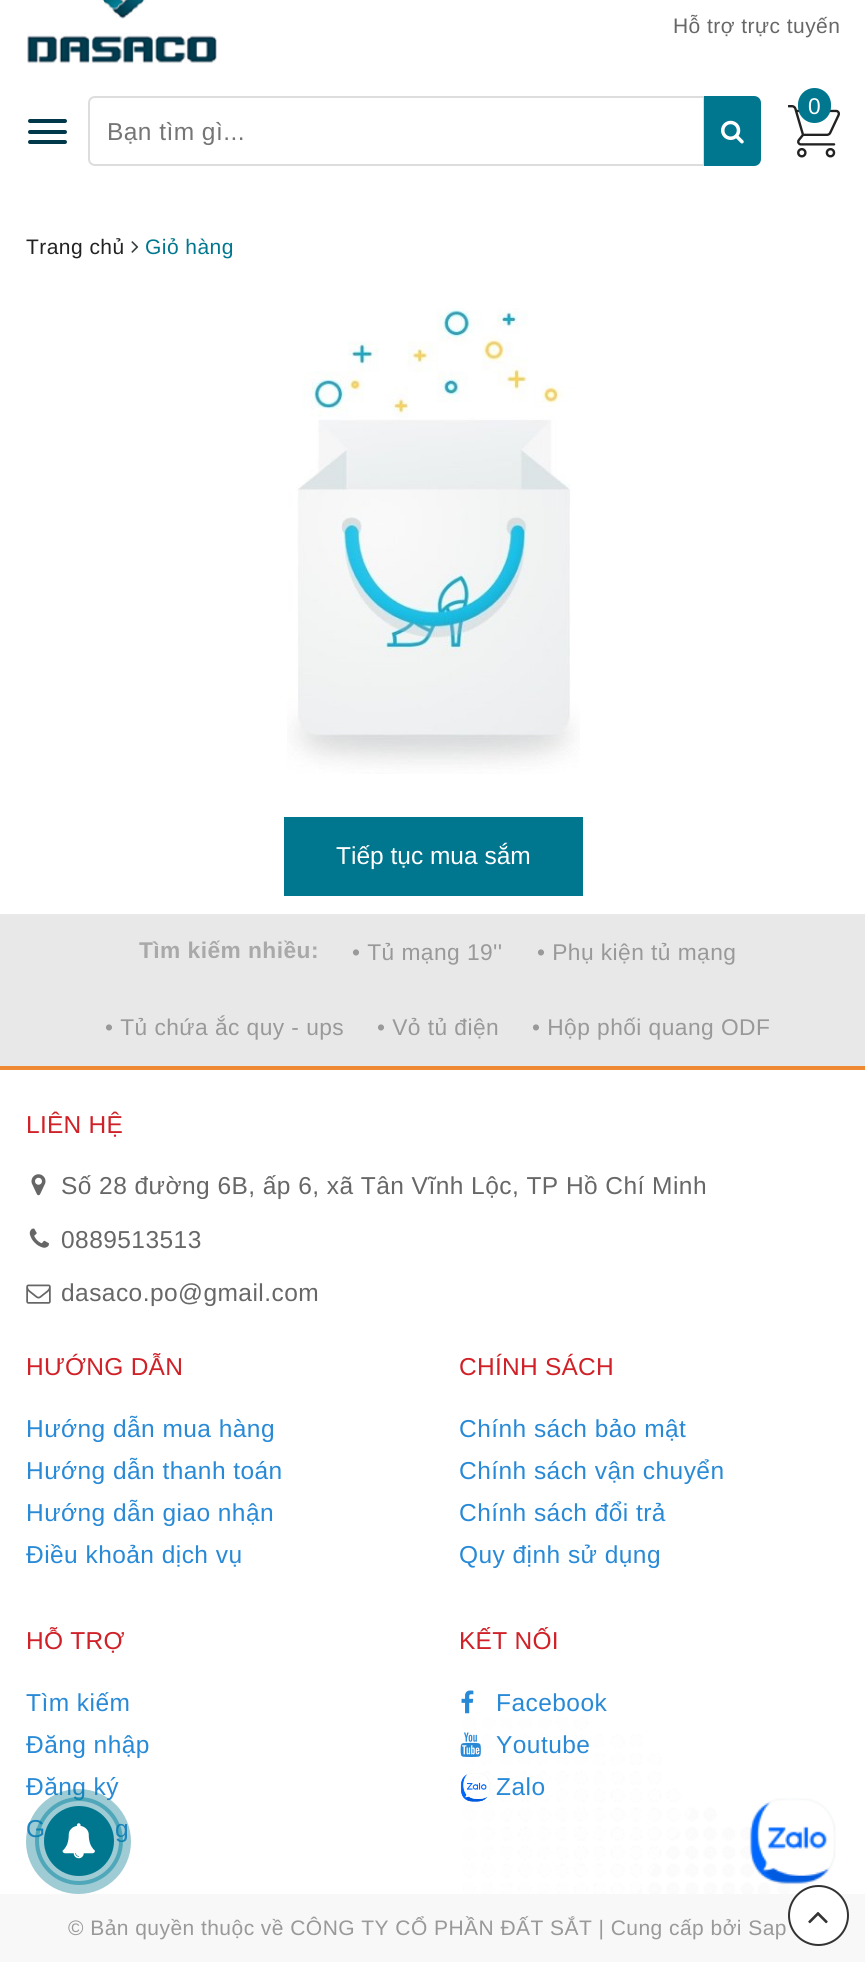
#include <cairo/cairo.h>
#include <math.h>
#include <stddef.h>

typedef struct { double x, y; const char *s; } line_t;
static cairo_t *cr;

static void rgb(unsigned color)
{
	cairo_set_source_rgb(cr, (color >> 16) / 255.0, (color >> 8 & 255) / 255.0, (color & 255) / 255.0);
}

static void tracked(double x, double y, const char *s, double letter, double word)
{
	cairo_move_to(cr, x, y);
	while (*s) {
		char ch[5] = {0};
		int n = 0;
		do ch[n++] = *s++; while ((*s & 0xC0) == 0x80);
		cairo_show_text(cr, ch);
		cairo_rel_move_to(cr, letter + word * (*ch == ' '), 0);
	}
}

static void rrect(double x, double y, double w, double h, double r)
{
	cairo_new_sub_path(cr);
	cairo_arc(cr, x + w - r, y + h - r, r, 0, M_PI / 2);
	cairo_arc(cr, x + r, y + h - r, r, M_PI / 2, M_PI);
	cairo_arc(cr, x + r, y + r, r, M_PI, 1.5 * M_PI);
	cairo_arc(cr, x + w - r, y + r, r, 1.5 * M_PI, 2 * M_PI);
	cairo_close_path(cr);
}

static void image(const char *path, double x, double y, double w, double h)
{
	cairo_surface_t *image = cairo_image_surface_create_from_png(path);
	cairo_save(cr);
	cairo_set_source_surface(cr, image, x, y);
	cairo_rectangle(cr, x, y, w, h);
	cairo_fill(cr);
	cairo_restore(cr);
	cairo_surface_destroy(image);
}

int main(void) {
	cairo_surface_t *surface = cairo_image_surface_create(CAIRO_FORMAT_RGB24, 865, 1962);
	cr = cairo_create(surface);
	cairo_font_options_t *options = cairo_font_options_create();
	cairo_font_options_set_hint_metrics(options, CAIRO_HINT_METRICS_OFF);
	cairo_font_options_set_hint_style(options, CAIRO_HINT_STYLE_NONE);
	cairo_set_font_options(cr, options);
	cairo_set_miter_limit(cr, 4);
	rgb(0xffffff);
	cairo_paint(cr);
	image("img/1.png", 27, 0, 190, 64);
	image("img/2.png", 788, 105, 52, 53);
	rgb(0x00778e);
	rrect(798, 88, 33, 35, 16.5);
	cairo_fill(cr);
	rgb(0x01394b);
	rrect(28, 119, 39, 4, 2);
	cairo_fill(cr);
	rrect(28, 130, 39, 4, 2);
	cairo_fill(cr);
	rrect(28, 140, 39, 4, 2);
	cairo_fill(cr);
	cairo_new_path(cr);
	cairo_move_to(cr, 95, 97);
	cairo_line_to(cr, 704, 97);
	cairo_line_to(cr, 704, 165);
	cairo_line_to(cr, 95, 165);
	cairo_curve_to(cr, 91.5, 165, 89, 162.5, 89, 159);
	cairo_line_to(cr, 89, 103);
	cairo_curve_to(cr, 89, 99.5, 91.5, 97, 95, 97);
	cairo_close_path(cr);
	rgb(0xdddddd);
	cairo_stroke(cr);
	rgb(0x00778e);
	cairo_new_path(cr);
	cairo_move_to(cr, 704, 96);
	cairo_line_to(cr, 754, 96);
	cairo_curve_to(cr, 758, 96, 761, 99, 761, 103);
	cairo_line_to(cr, 761, 159);
	cairo_curve_to(cr, 761, 163, 758, 166, 754, 166);
	cairo_line_to(cr, 704, 166);
	cairo_close_path(cr);
	cairo_fill(cr);
	image("img/3.png", 721, 120, 23, 24);
	image("img/4.png", 131, 241, 8, 12);
	image("img/5.png", 287, 308, 293, 466);
	cairo_rectangle(cr, 284, 817, 299, 79);
	cairo_fill(cr);
	rgb(0xe8e8e8);
	cairo_rectangle(cr, 0, 914, 865, 152);
	cairo_fill(cr);
	image("img/6.png", 463, 1717, 327, 177);
	rgb(0xef8a32);
	cairo_rectangle(cr, 0, 1066, 865, 4);
	cairo_fill(cr);
	image("img/7.png", 31, 1174, 15, 22);
	image("img/8.png", 29, 1228, 20, 20);
	image("img/9.png", 26, 1284, 25, 20);
	image("img/10.png", 461, 1690, 13, 24);
	image("img/11.png", 460, 1732, 21, 25);
	image("img/12.png", 460, 1773, 30, 29);
	rgb(0xf8f8f8);
	cairo_rectangle(cr, 0, 1894, 865, 68);
	cairo_fill(cr);
	rgb(0xffffff);
	cairo_arc(cr, 818.5, 1915.5, 29.5, 0, 2 * M_PI);
	cairo_fill_preserve(cr);
	rgb(0x333333);
	cairo_stroke(cr);
	image("img/13.png", 808, 1912, 20, 12);
	image("img/15.png", 749, 1798, 87, 87);
	cairo_select_font_face(cr, "Liberation Sans", CAIRO_FONT_SLANT_NORMAL, CAIRO_FONT_WEIGHT_NORMAL);
	cairo_set_font_size(cr, 21);
	rgb(0x676767);
	tracked(673, 33, "Hỗ trợ trực tuyến", 0.45, 0);
	cairo_set_font_size(cr, 22.75);
	rgb(0xffffff);
	tracked(808, 114, "0", 0.45, 0);
	cairo_set_font_size(cr, 24.5);
	rgb(0x757575);
	tracked(107, 140, "Bạn tìm gì...", 0.45, 0);
	cairo_set_font_size(cr, 21);
	rgb(0x222222);
	tracked(26, 254, "Trang chủ", 0.45, 0);
	rgb(0x00778e);
	tracked(145, 254, "Giỏ hàng", 0.45, 0);
	cairo_set_font_size(cr, 24.5);
	rgb(0xffffff);
	cairo_move_to(cr, 336, 864);
	cairo_show_text(cr, "Tiếp tục mua sắm");
	cairo_select_font_face(cr, "Liberation Sans", CAIRO_FONT_SLANT_NORMAL, CAIRO_FONT_WEIGHT_BOLD);
	cairo_set_font_size(cr, 22.75);
	rgb(0xa9a9a9);
	tracked(139, 958, "Tìm kiếm nhiều:", 0.45, 0);
	cairo_select_font_face(cr, "Liberation Sans", CAIRO_FONT_SLANT_NORMAL, CAIRO_FONT_WEIGHT_NORMAL);
	rgb(0x999999);
	{
		static const line_t items[] = {
			{352, 960, "• Tủ mạng 19''"},
			{537, 960, "• Phụ kiện tủ mạng"},
			{105, 1035, "• Tủ chứa ắc quy - ups"},
			{377, 1035, "• Vỏ tủ điện"},
			{532, 1035, "• Hộp phối quang ODF"},
		};
		for (size_t i = 0; i < sizeof items / sizeof *items; i++) {
			tracked(items[i].x, items[i].y, items[i].s, 0.45, 0);
		}
	}
	cairo_set_font_size(cr, 24.5);
	rgb(0xcf2127);
	tracked(26, 1133, "LIÊN HỆ", 0.25, 0);
	rgb(0x676767);
	{
		static const line_t items[] = {
			{61, 1194, "Số 28 đường 6B, ấp 6, xã Tân Vĩnh Lộc, TP Hồ Chí Minh"},
			{61, 1248, "0889513513"},
			{61, 1301, "dasaco.po@gmail.com"},
		};
		for (size_t i = 0; i < sizeof items / sizeof *items; i++) {
			tracked(items[i].x, items[i].y, items[i].s, 0.45, 0);
		}
	}
	rgb(0xcf2127);
	tracked(26, 1375, "HƯỚNG DẪN", 0.25, 0);
	rgb(0x288ad6);
	{
		static const line_t items[] = {
			{26, 1437, "Hướng dẫn mua hàng"},
			{26, 1479, "Hướng dẫn thanh toán"},
			{26, 1521, "Hướng dẫn giao nhận"},
			{26, 1563, "Điều khoản dịch vụ"},
		};
		for (size_t i = 0; i < sizeof items / sizeof *items; i++) {
			tracked(items[i].x, items[i].y, items[i].s, 0.45, 0);
		}
	}
	rgb(0xcf2127);
	tracked(459, 1375, "CHÍNH SÁCH", 0.25, 0);
	rgb(0x288ad6);
	{
		static const line_t items[] = {
			{459, 1437, "Chính sách bảo mật"},
			{459, 1479, "Chính sách vận chuyển"},
			{459, 1521, "Chính sách đổi trả"},
			{459, 1563, "Quy định sử dụng"},
		};
		for (size_t i = 0; i < sizeof items / sizeof *items; i++) {
			tracked(items[i].x, items[i].y, items[i].s, 0.45, 0);
		}
	}
	rgb(0xcf2127);
	tracked(26, 1649, "HỖ TRỢ", 0.25, 0);
	rgb(0x288ad6);
	{
		static const line_t items[] = {
			{26, 1711, "Tìm kiếm"},
			{26, 1753, "Đăng nhập"},
			{26, 1795, "Đăng ký"},
			{26, 1837, "G"},
			{115, 1837, "g"},
		};
		for (size_t i = 0; i < sizeof items / sizeof *items; i++) {
			tracked(items[i].x, items[i].y, items[i].s, 0.45, 0);
		}
	}
	rgb(0xcf2127);
	tracked(459, 1649, "KẾT NỐI", 0.25, 0);
	rgb(0x288ad6);
	{
		static const line_t items[] = {
			{496, 1711, "Facebook"},
			{496, 1753, "Youtube"},
			{496, 1795, "Zalo"},
		};
		for (size_t i = 0; i < sizeof items / sizeof *items; i++) {
			tracked(items[i].x, items[i].y, items[i].s, 0.45, 0);
		}
	}
	cairo_set_font_size(cr, 21);
	rgb(0x999999);
	tracked(68, 1935, "© Bản quyền thuộc về CÔNG TY CỔ PHẦN ĐẤT SẮT | Cung cấp bởi Sap", 0.45, 0);
	cairo_new_path(cr);
	cairo_arc(cr, 79, 1841, 42, 0, 2 * M_PI);
	cairo_set_source_rgba(cr, 0, 0.549, 0.659, 0.5);
	cairo_set_line_width(cr, 4);
	cairo_stroke(cr);
	cairo_set_source_rgba(cr, 0, 0.467, 0.557, 0.38);
	cairo_arc(cr, 78.5, 1841.5, 52.5, 0, 2 * M_PI);
	cairo_fill(cr);
	rgb(0x00778e);
	cairo_arc(cr, 79, 1841, 35, 0, 2 * M_PI);
	cairo_fill(cr);
	image("img/14.png", 62, 1823, 33, 36);
	cairo_surface_write_to_png(surface, "page.png");
	cairo_font_options_destroy(options);
	cairo_destroy(cr);
	cairo_surface_destroy(surface);
	return 0;
}
